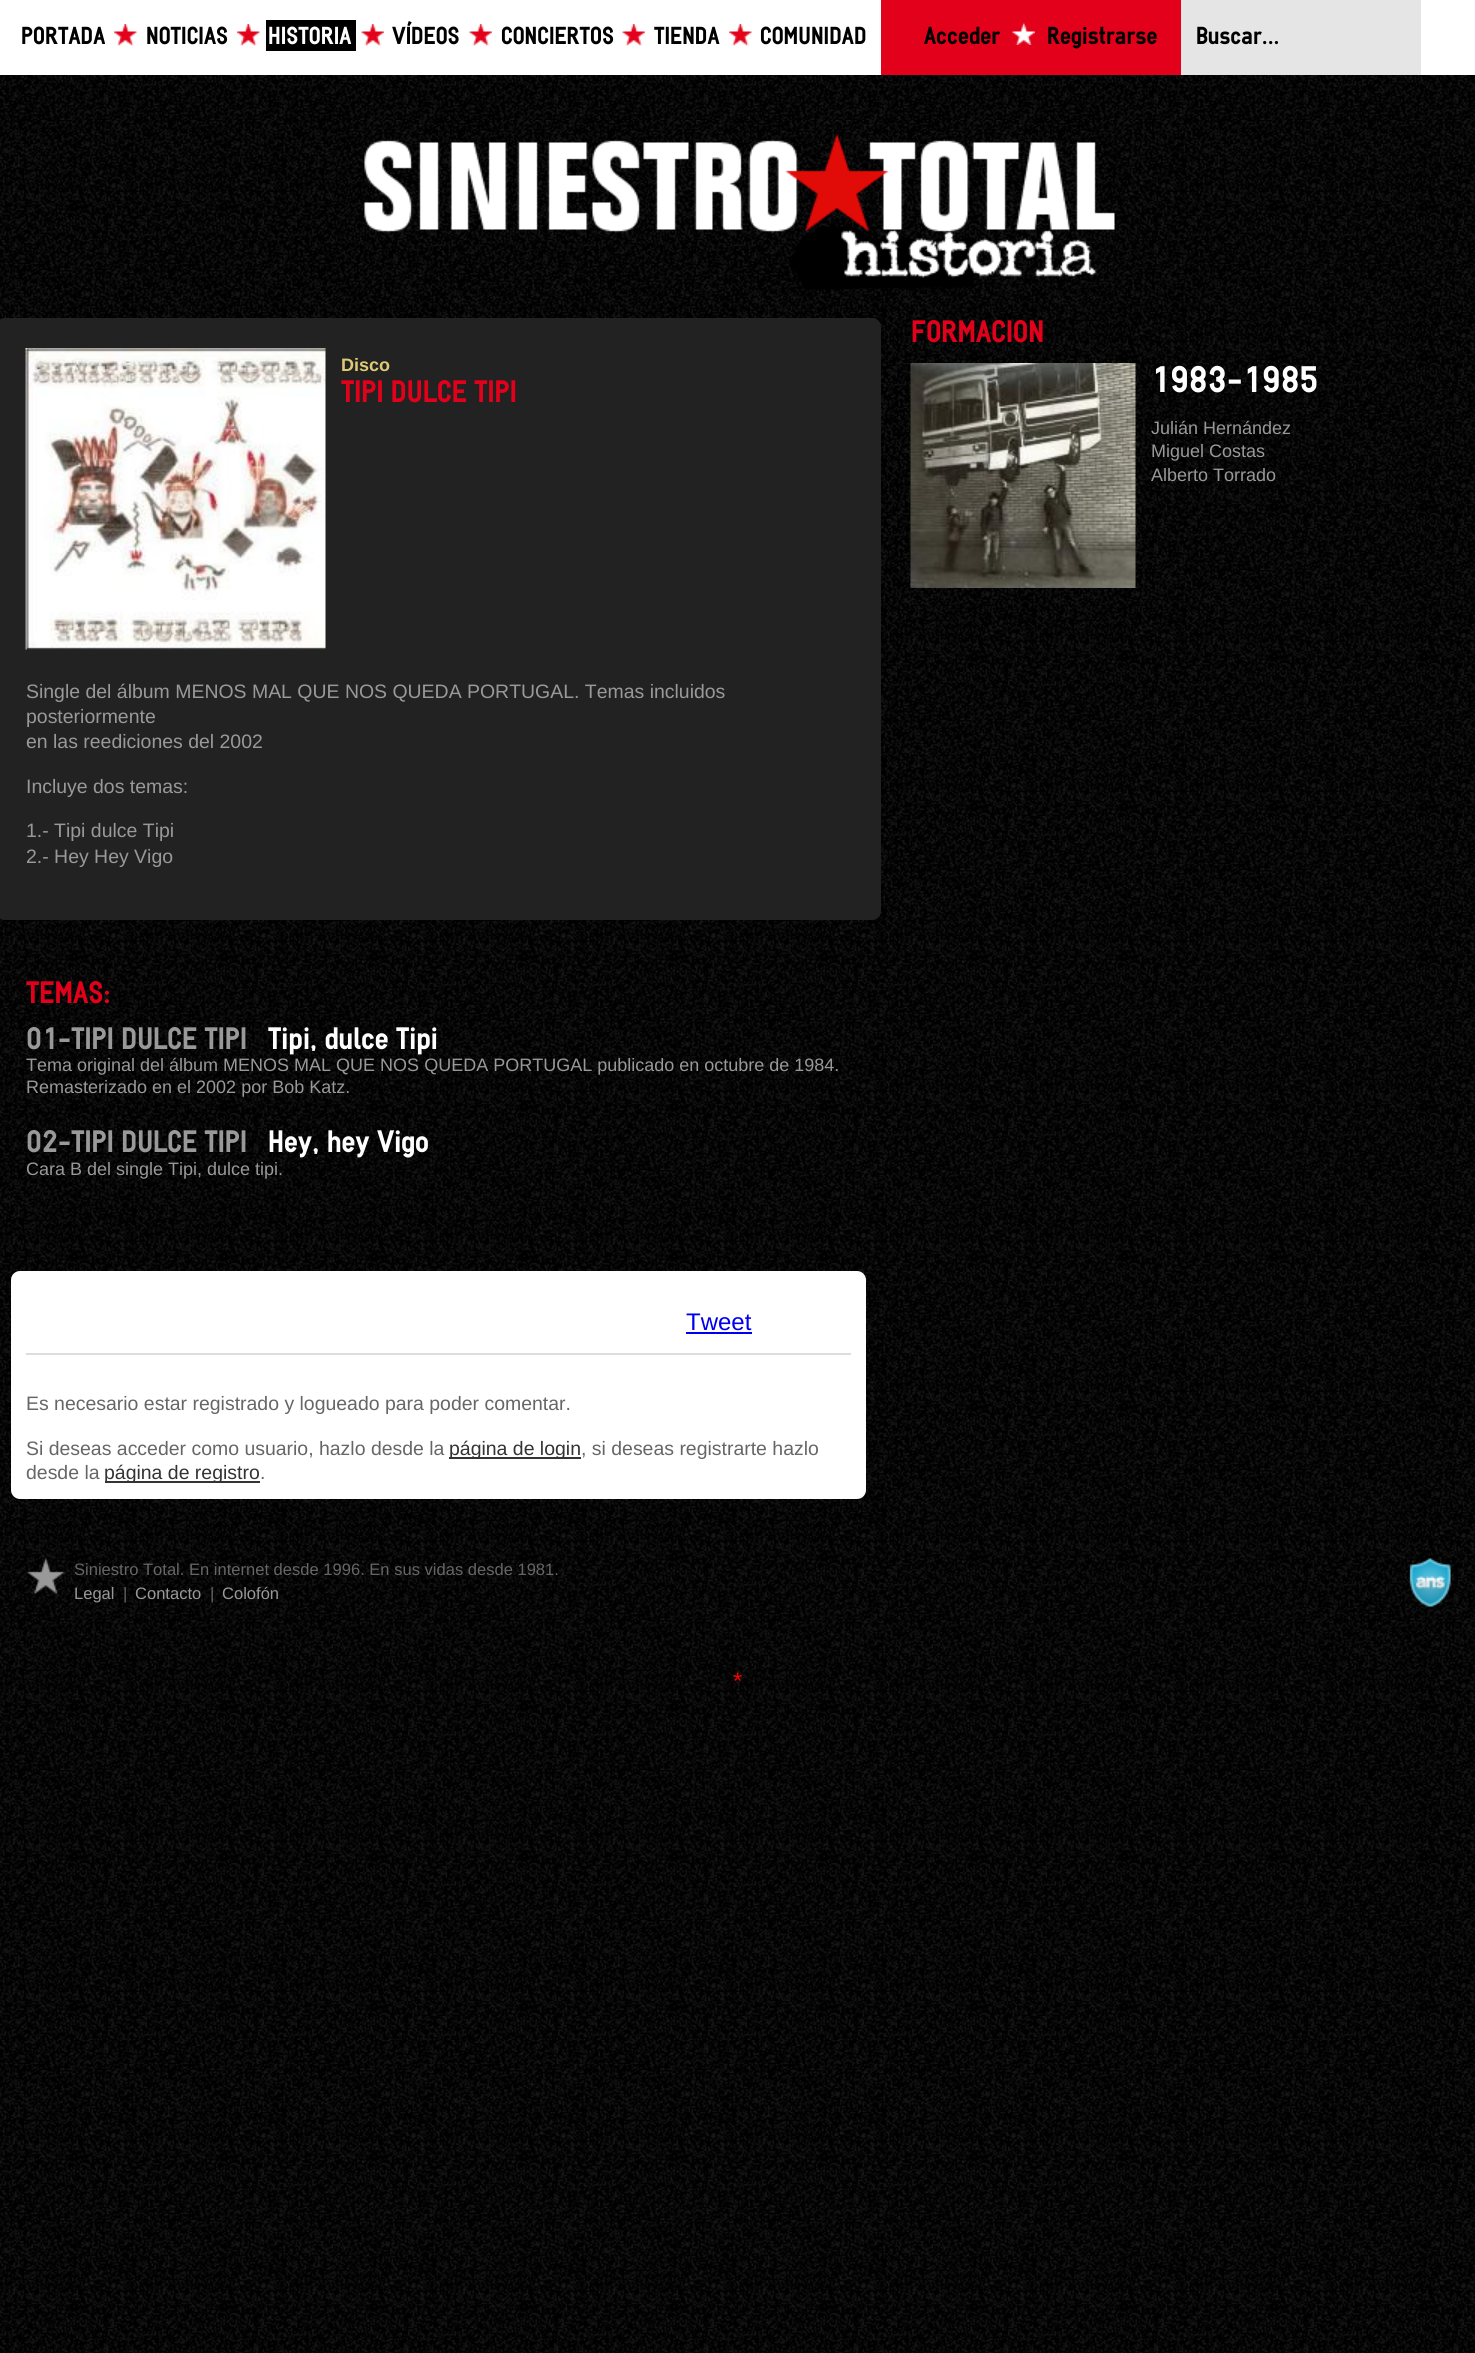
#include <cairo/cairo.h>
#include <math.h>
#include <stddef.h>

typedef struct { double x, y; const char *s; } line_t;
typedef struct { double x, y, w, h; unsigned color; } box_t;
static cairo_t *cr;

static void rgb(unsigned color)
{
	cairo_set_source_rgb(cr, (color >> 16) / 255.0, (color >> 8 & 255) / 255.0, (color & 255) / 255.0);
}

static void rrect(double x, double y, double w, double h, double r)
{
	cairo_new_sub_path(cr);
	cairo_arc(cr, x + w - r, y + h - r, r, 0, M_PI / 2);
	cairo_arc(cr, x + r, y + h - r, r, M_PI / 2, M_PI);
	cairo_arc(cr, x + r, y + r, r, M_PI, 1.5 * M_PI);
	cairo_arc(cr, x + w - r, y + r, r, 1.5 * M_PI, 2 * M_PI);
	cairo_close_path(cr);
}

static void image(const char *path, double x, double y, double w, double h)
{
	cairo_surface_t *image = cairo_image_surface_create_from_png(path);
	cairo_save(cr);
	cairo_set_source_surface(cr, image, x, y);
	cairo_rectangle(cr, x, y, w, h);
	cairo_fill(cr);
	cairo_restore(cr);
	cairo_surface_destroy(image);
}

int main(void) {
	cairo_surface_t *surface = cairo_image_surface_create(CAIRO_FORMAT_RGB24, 1475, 2353);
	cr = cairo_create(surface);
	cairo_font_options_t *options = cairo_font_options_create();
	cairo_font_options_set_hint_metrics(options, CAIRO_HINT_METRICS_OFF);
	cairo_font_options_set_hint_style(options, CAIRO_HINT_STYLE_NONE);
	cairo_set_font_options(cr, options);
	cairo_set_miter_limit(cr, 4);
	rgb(0xffffff);
	cairo_paint(cr);
	image("img/1.png", 0, 75, 1475, 2278);
	image("img/2.png", 114, 24, 23, 22);
	image("img/2.png", 237, 24, 23, 22);
	image("img/3.png", 361, 24, 23, 22);
	rgb(0x000000);
	cairo_rectangle(cr, 266, 20, 90, 31);
	cairo_fill(cr);
	image("img/4.png", 469, 24, 23, 22);
	image("img/3.png", 622, 24, 23, 22);
	image("img/5.png", 729, 24, 23, 22);
	rgb(0xe2001a);
	cairo_rectangle(cr, 881, 0, 300, 75);
	cairo_fill(cr);
	image("img/6.png", 1012, 22, 23, 23);
	rgb(0xe5e5e5);
	cairo_rectangle(cr, 1181, 0, 240, 75);
	cairo_fill(cr);
	image("img/7.png", 337, 120, 802, 176);
	rgb(0x222222);
	rrect(-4, 318, 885, 602, 9);
	cairo_fill(cr);
	image("img/8.png", 25, 348, 301, 302);
	rgb(0xffffff);
	rrect(11, 1271, 855, 228, 9);
	cairo_fill(cr);
	{
		static const box_t items[] = {
			{26, 1353, 825, 2, 0xdddddd},
			{686, 1332, 66, 2, 0x0000ee},
			{449, 1457, 132, 2, 0x333333},
			{105, 1481, 155, 2, 0x333333},
		};
		for (size_t i = 0; i < sizeof items / sizeof *items; i++) {
			rgb(items[i].color);
			cairo_rectangle(cr, items[i].x, items[i].y, items[i].w, items[i].h);
			cairo_fill(cr);
		}
	}
	image("img/9.png", 910, 363, 226, 225);
	image("img/10.png", 25, 1558, 40, 37);
	image("img/11.png", 1409, 1558, 42, 49);
	cairo_select_font_face(cr, "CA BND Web", CAIRO_FONT_SLANT_NORMAL, CAIRO_FONT_WEIGHT_BOLD);
	cairo_set_font_size(cr, 24);
	rgb(0x000000);
	cairo_move_to(cr, 21, 44);
	cairo_show_text(cr, "PORTADA");
	cairo_move_to(cr, 146, 44);
	cairo_show_text(cr, "NOTICIAS");
	rgb(0xffffff);
	cairo_move_to(cr, 268, 44);
	cairo_show_text(cr, "HISTORIA");
	rgb(0x000000);
	{
		static const line_t items[] = {
			{392, 44, "VÍDEOS"},
			{501, 44, "CONCIERTOS"},
			{654, 44, "TIENDA"},
			{760, 44, "COMUNIDAD"},
			{924, 44, "Acceder"},
			{1047, 44, "Registrarse"},
			{1196, 44, "Buscar..."},
		};
		for (size_t i = 0; i < sizeof items / sizeof *items; i++) {
			cairo_move_to(cr, items[i].x, items[i].y);
			cairo_show_text(cr, items[i].s);
		}
	}
	cairo_select_font_face(cr, "Liberation Sans", CAIRO_FONT_SLANT_NORMAL, CAIRO_FONT_WEIGHT_BOLD);
	cairo_set_font_size(cr, 18);
	rgb(0xdeca74);
	cairo_move_to(cr, 341, 371);
	cairo_show_text(cr, "Disco");
	cairo_select_font_face(cr, "CA BND Web", CAIRO_FONT_SLANT_NORMAL, CAIRO_FONT_WEIGHT_BOLD);
	cairo_set_font_size(cr, 30.25);
	rgb(0xe2001a);
	cairo_move_to(cr, 341, 402);
	cairo_show_text(cr, "TIPI DULCE TIPI");
	cairo_select_font_face(cr, "Liberation Sans", CAIRO_FONT_SLANT_NORMAL, CAIRO_FONT_WEIGHT_NORMAL);
	cairo_set_font_size(cr, 19.45);
	rgb(0x999999);
	{
		static const line_t items[] = {
			{26, 698, "Single del álbum MENOS MAL QUE NOS QUEDA PORTUGAL. Temas incluidos"},
			{26, 723, "posteriormente"},
			{26, 748, "en las reediciones del 2002"},
			{26, 793, "Incluye dos temas:"},
			{26, 837, "1.- Tipi dulce Tipi"},
			{26, 863, "2.- Hey Hey Vigo"},
		};
		for (size_t i = 0; i < sizeof items / sizeof *items; i++) {
			cairo_move_to(cr, items[i].x, items[i].y);
			cairo_show_text(cr, items[i].s);
		}
	}
	cairo_select_font_face(cr, "CA BND Web", CAIRO_FONT_SLANT_NORMAL, CAIRO_FONT_WEIGHT_BOLD);
	cairo_set_font_size(cr, 30.25);
	rgb(0xe2001a);
	cairo_move_to(cr, 26, 1003);
	cairo_show_text(cr, "TEMAS:");
	rgb(0x999999);
	cairo_move_to(cr, 26, 1049);
	cairo_show_text(cr, "01-TIPI DULCE TIPI");
	rgb(0xffffff);
	cairo_move_to(cr, 268, 1049);
	cairo_show_text(cr, "Tipi, dulce Tipi");
	cairo_select_font_face(cr, "Liberation Sans", CAIRO_FONT_SLANT_NORMAL, CAIRO_FONT_WEIGHT_NORMAL);
	cairo_set_font_size(cr, 18);
	rgb(0x999999);
	cairo_move_to(cr, 26, 1071);
	cairo_show_text(cr, "Tema original del álbum MENOS MAL QUE NOS QUEDA PORTUGAL publicado en octubre de 1984.");
	cairo_move_to(cr, 26, 1093);
	cairo_show_text(cr, "Remasterizado en el 2002 por Bob Katz.");
	cairo_select_font_face(cr, "CA BND Web", CAIRO_FONT_SLANT_NORMAL, CAIRO_FONT_WEIGHT_BOLD);
	cairo_set_font_size(cr, 30.25);
	cairo_move_to(cr, 26, 1152);
	cairo_show_text(cr, "02-TIPI DULCE TIPI");
	rgb(0xffffff);
	cairo_move_to(cr, 268, 1152);
	cairo_show_text(cr, "Hey, hey Vigo");
	cairo_select_font_face(cr, "Liberation Sans", CAIRO_FONT_SLANT_NORMAL, CAIRO_FONT_WEIGHT_NORMAL);
	cairo_set_font_size(cr, 18);
	rgb(0x999999);
	cairo_move_to(cr, 26, 1175);
	cairo_show_text(cr, "Cara B del single Tipi, dulce tipi.");
	cairo_set_font_size(cr, 24);
	rgb(0x0000ee);
	cairo_move_to(cr, 686, 1330);
	cairo_show_text(cr, "Tweet");
	cairo_set_font_size(cr, 19.45);
	rgb(0x666666);
	cairo_move_to(cr, 26, 1410);
	cairo_show_text(cr, "Es necesario estar registrado y logueado para poder comentar.");
	cairo_move_to(cr, 26, 1455);
	cairo_show_text(cr, "Si deseas acceder como usuario, hazlo desde la");
	rgb(0x333333);
	cairo_move_to(cr, 449, 1455);
	cairo_show_text(cr, "página de login");
	rgb(0x666666);
	cairo_move_to(cr, 581, 1455);
	cairo_show_text(cr, ", si deseas registrarte hazlo");
	cairo_move_to(cr, 26, 1479);
	cairo_show_text(cr, "desde la");
	rgb(0x333333);
	cairo_move_to(cr, 104, 1479);
	cairo_show_text(cr, "página de registro");
	rgb(0x666666);
	cairo_move_to(cr, 260, 1479);
	cairo_show_text(cr, ".");
	cairo_select_font_face(cr, "CA BND Web", CAIRO_FONT_SLANT_NORMAL, CAIRO_FONT_WEIGHT_BOLD);
	cairo_set_font_size(cr, 30.25);
	rgb(0xe2001a);
	cairo_move_to(cr, 911, 342);
	cairo_show_text(cr, "FORMACION");
	cairo_set_font_size(cr, 36);
	rgb(0xffffff);
	cairo_move_to(cr, 1151, 392);
	cairo_show_text(cr, "1983-1985");
	cairo_select_font_face(cr, "Liberation Sans", CAIRO_FONT_SLANT_NORMAL, CAIRO_FONT_WEIGHT_NORMAL);
	cairo_set_font_size(cr, 18);
	rgb(0x999999);
	{
		static const line_t items[] = {
			{1151, 434, "Julián Hernández"},
			{1151, 457, "Miguel Costas"},
			{1151, 481, "Alberto Torrado"},
		};
		for (size_t i = 0; i < sizeof items / sizeof *items; i++) {
			cairo_move_to(cr, items[i].x, items[i].y);
			cairo_show_text(cr, items[i].s);
		}
	}
	cairo_set_font_size(cr, 16.55);
	rgb(0x666666);
	cairo_move_to(cr, 74, 1575);
	cairo_show_text(cr, "Siniestro Total. En internet desde 1996. En sus vidas desde 1981.");
	rgb(0x999999);
	cairo_move_to(cr, 74, 1599);
	cairo_show_text(cr, "Legal");
	rgb(0x666666);
	cairo_move_to(cr, 123, 1599);
	cairo_show_text(cr, "|");
	rgb(0x999999);
	cairo_move_to(cr, 135, 1599);
	cairo_show_text(cr, "Contacto");
	rgb(0x666666);
	cairo_move_to(cr, 210, 1599);
	cairo_show_text(cr, "|");
	rgb(0x999999);
	cairo_move_to(cr, 222, 1599);
	cairo_show_text(cr, "Colofón");
	cairo_set_font_size(cr, 24);
	rgb(0xff0000);
	cairo_move_to(cr, 733, 1689);
	cairo_show_text(cr, "*");
	cairo_surface_write_to_png(surface, "page.png");
	cairo_font_options_destroy(options);
	cairo_destroy(cr);
	cairo_surface_destroy(surface);
	return 0;
}
